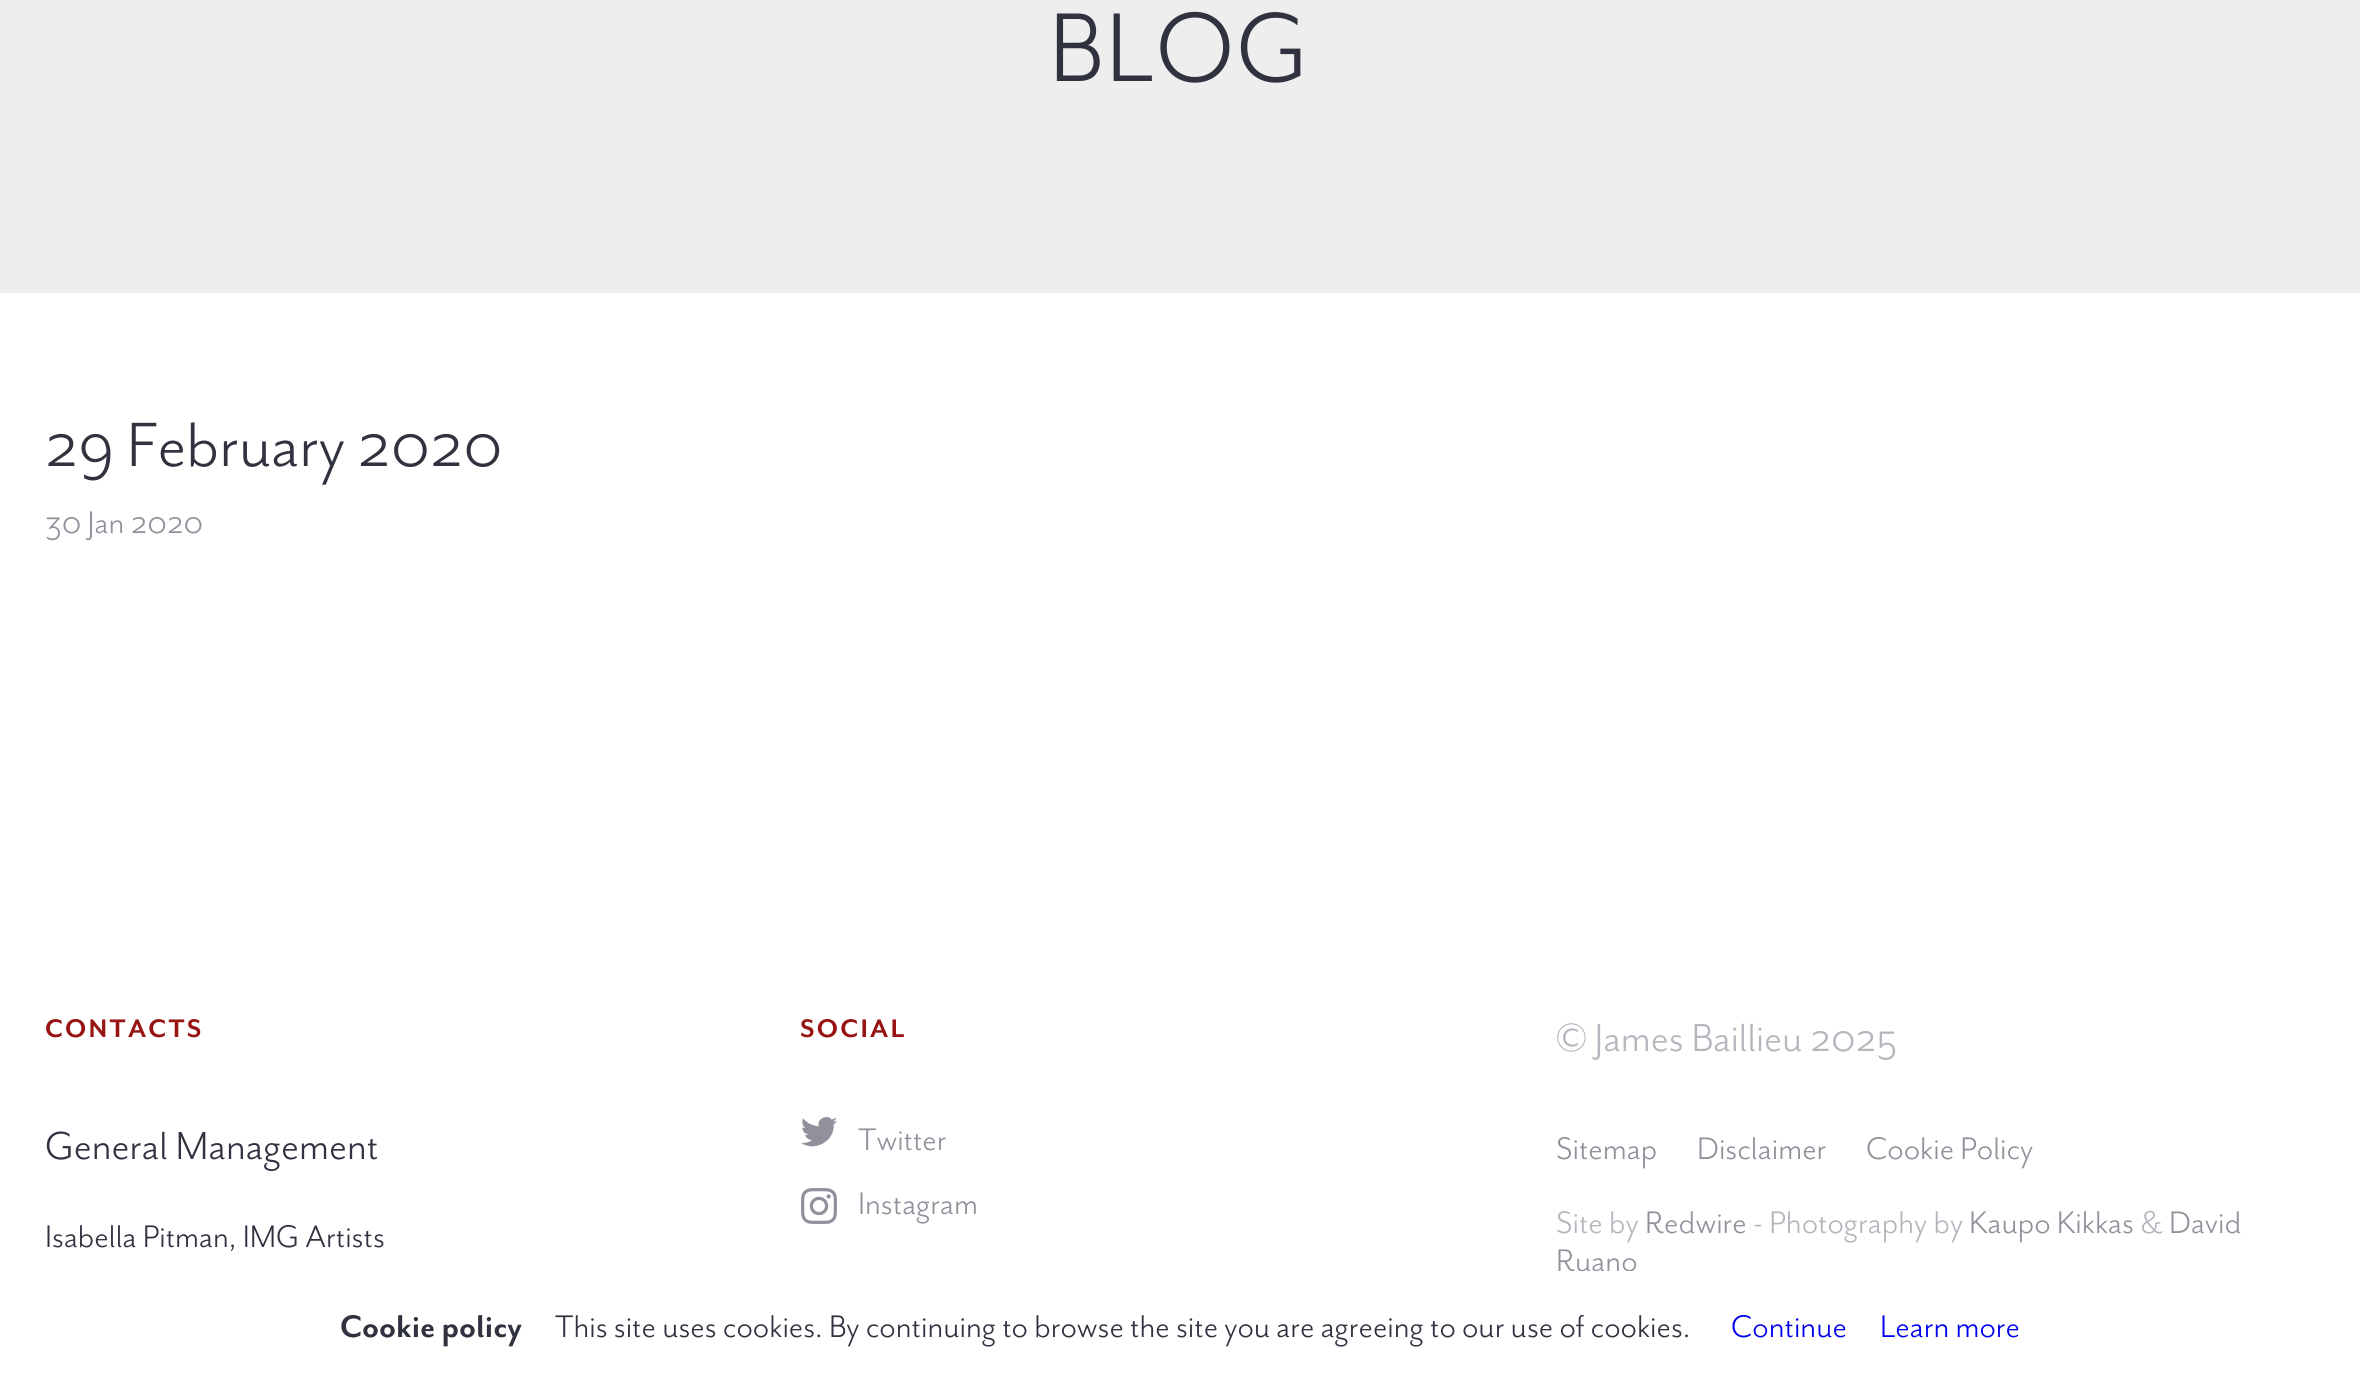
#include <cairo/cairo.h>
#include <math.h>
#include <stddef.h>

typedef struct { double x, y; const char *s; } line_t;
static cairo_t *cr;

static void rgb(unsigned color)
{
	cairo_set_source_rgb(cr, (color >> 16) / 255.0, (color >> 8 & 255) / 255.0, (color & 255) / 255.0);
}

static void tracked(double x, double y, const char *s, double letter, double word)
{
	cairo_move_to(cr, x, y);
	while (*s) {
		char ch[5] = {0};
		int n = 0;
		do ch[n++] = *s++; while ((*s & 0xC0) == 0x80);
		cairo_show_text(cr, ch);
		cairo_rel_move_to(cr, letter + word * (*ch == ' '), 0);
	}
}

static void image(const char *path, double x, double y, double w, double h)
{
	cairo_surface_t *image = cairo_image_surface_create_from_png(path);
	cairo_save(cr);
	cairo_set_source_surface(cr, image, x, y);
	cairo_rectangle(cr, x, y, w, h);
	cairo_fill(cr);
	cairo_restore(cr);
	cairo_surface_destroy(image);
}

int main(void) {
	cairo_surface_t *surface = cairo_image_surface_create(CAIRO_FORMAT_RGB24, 2360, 1380);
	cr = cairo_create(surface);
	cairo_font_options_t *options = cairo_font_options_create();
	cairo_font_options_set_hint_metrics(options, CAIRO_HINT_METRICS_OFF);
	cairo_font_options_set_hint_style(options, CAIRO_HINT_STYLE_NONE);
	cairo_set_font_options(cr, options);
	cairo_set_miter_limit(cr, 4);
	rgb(0xffffff);
	cairo_paint(cr);
	rgb(0xeeeeee);
	cairo_rectangle(cr, 0, 0, 2360, 293);
	cairo_fill(cr);
	image("img/1.png", 801, 1117, 36, 30);
	image("img/2.png", 801, 1188, 36, 36);
	cairo_select_font_face(cr, "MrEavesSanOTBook", CAIRO_FONT_SLANT_NORMAL, CAIRO_FONT_WEIGHT_NORMAL);
	cairo_set_font_size(cr, 112.5);
	rgb(0x30323f);
	tracked(1049, 81, "BLOG", 2.25, 0);
	cairo_set_font_size(cr, 72);
	cairo_move_to(cr, 45, 466);
	cairo_show_text(cr, "29 February 2020");
	cairo_set_font_size(cr, 36);
	rgb(0x90919b);
	cairo_move_to(cr, 45, 533);
	cairo_show_text(cr, "30 Jan 2020");
	cairo_select_font_face(cr, "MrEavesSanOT", CAIRO_FONT_SLANT_NORMAL, CAIRO_FONT_WEIGHT_BOLD);
	cairo_set_font_size(cr, 29.25);
	rgb(0x971413);
	tracked(45, 1037, "CONTACTS", 2.25, 0);
	cairo_select_font_face(cr, "MrEavesSanOTBook", CAIRO_FONT_SLANT_NORMAL, CAIRO_FONT_WEIGHT_NORMAL);
	cairo_set_font_size(cr, 45);
	rgb(0x30323f);
	cairo_move_to(cr, 45, 1159);
	cairo_show_text(cr, "General Management");
	cairo_set_font_size(cr, 36);
	cairo_move_to(cr, 45, 1247);
	cairo_show_text(cr, "Isabella Pitman, IMG Artists");
	cairo_select_font_face(cr, "MrEavesSanOT", CAIRO_FONT_SLANT_NORMAL, CAIRO_FONT_WEIGHT_BOLD);
	cairo_set_font_size(cr, 29.25);
	rgb(0x971413);
	tracked(800, 1037, "SOCIAL", 2.25, 0);
	cairo_select_font_face(cr, "MrEavesSanOTBook", CAIRO_FONT_SLANT_NORMAL, CAIRO_FONT_WEIGHT_NORMAL);
	cairo_set_font_size(cr, 36);
	rgb(0x90919b);
	cairo_move_to(cr, 858, 1150);
	cairo_show_text(cr, "Twitter");
	cairo_move_to(cr, 858, 1214);
	cairo_show_text(cr, "Instagram");
	cairo_set_font_size(cr, 45);
	rgb(0xb4b5bd);
	cairo_move_to(cr, 1556, 1051);
	cairo_show_text(cr, "© James Baillieu 2025");
	cairo_set_font_size(cr, 36);
	rgb(0x90919b);
	{
		static const line_t items[] = {
			{1556, 1159, "Sitemap"},
			{1697, 1159, "Disclaimer"},
			{1866, 1159, "Cookie Policy"},
		};
		for (size_t i = 0; i < sizeof items / sizeof *items; i++) {
			cairo_move_to(cr, items[i].x, items[i].y);
			cairo_show_text(cr, items[i].s);
		}
	}
	rgb(0xb4b5bd);
	cairo_move_to(cr, 1556, 1233);
	cairo_show_text(cr, "Site by");
	rgb(0x90919b);
	cairo_move_to(cr, 1645, 1233);
	cairo_show_text(cr, "Redwire");
	rgb(0xb4b5bd);
	cairo_move_to(cr, 1753, 1233);
	cairo_show_text(cr, "- Photography by");
	rgb(0x90919b);
	cairo_move_to(cr, 1969, 1233);
	cairo_show_text(cr, "Kaupo Kikkas");
	rgb(0xb4b5bd);
	cairo_move_to(cr, 2140, 1233);
	cairo_show_text(cr, "&");
	rgb(0x90919b);
	cairo_move_to(cr, 2169, 1233);
	cairo_show_text(cr, "David");
	cairo_move_to(cr, 1556, 1271);
	cairo_show_text(cr, "Ruano");
	rgb(0xffffff);
	cairo_rectangle(cr, 1571, 1271, 61, 1);
	cairo_fill(cr);
	cairo_select_font_face(cr, "MrEavesSanOT", CAIRO_FONT_SLANT_NORMAL, CAIRO_FONT_WEIGHT_BOLD);
	rgb(0x30323f);
	cairo_move_to(cr, 340, 1337);
	cairo_show_text(cr, "Cookie policy");
	cairo_select_font_face(cr, "MrEavesSanOTBook", CAIRO_FONT_SLANT_NORMAL, CAIRO_FONT_WEIGHT_NORMAL);
	cairo_move_to(cr, 555, 1337);
	cairo_show_text(cr, "This site uses cookies. By continuing to browse the site you are agreeing to our use of cookies.");
	rgb(0x0000ee);
	cairo_move_to(cr, 1731, 1337);
	cairo_show_text(cr, "Continue");
	cairo_move_to(cr, 1880, 1337);
	cairo_show_text(cr, "Learn more");
	cairo_surface_write_to_png(surface, "page.png");
	cairo_font_options_destroy(options);
	cairo_destroy(cr);
	cairo_surface_destroy(surface);
	return 0;
}
